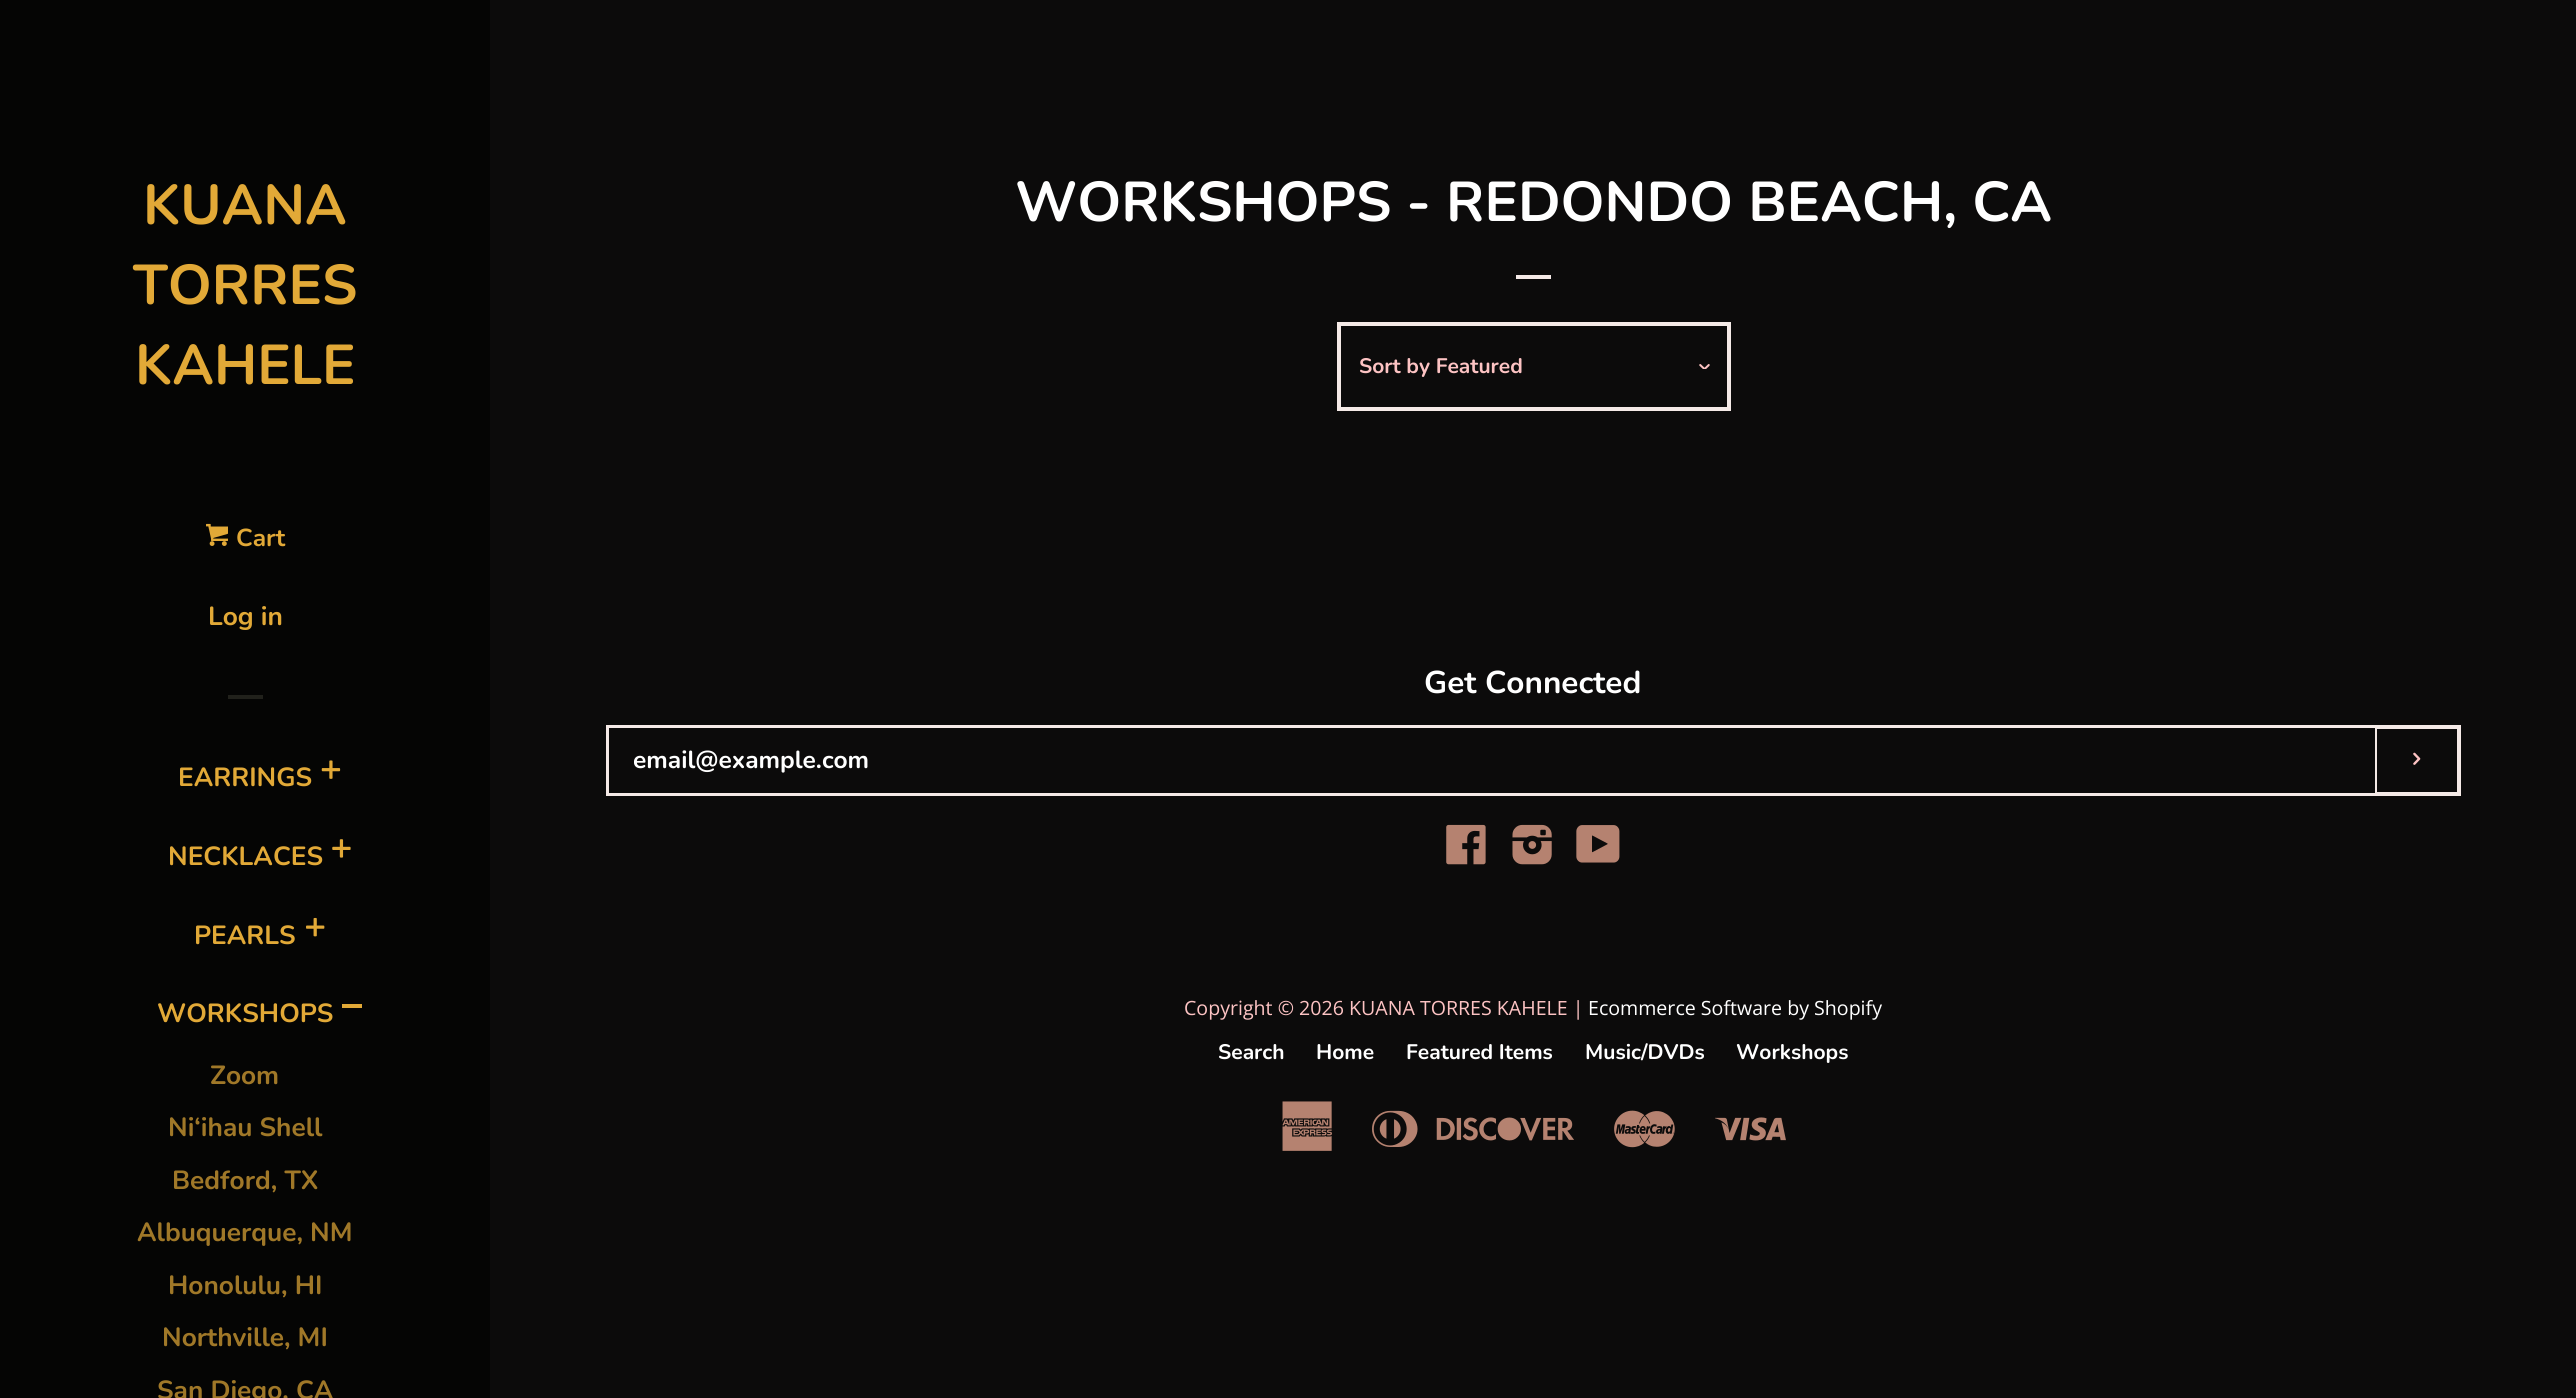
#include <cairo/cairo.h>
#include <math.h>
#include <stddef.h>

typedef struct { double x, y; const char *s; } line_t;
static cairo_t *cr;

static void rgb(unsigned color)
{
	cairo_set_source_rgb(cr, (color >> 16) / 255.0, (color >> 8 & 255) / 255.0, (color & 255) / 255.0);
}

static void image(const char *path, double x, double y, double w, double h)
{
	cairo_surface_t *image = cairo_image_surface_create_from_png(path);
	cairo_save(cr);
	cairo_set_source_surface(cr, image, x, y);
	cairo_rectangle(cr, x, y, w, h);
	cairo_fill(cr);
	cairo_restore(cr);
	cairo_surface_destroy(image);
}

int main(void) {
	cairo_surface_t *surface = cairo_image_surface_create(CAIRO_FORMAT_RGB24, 2576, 1398);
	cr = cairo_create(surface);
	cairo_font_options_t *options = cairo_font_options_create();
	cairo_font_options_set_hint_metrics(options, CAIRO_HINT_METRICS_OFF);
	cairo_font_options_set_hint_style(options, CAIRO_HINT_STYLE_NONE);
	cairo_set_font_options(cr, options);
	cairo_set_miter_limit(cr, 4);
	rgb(0x0c0b0b);
	cairo_paint(cr);
	rgb(0x050504);
	cairo_rectangle(cr, 0, 0, 490, 1398);
	cairo_fill(cr);
	image("img/1.png", 206, 523, 22, 23);
	rgb(0x21211b);
	cairo_rectangle(cr, 228, 695, 35, 4);
	cairo_fill(cr);
	image("img/2.png", 321, 760, 20, 19);
	image("img/3.png", 332, 839, 19, 19);
	image("img/4.png", 306, 917, 19, 20);
	rgb(0xe2a937);
	cairo_rectangle(cr, 342, 1004, 20, 4);
	cairo_fill(cr);
	rgb(0xf5eae7);
	cairo_rectangle(cr, 1516, 275, 35, 4);
	cairo_fill(cr);
	image("img/5.png", 1699, 364, 11, 5);
	cairo_rectangle(cr, 1339, 324, 390, 85);
	cairo_set_line_width(cr, 4);
	cairo_stroke(cr);
	cairo_rectangle(cr, 608, 727, 1851, 67);
	cairo_stroke(cr);
	rgb(0x0c0b0b);
	cairo_rectangle(cr, 609, 728, 1766, 65);
	cairo_fill(cr);
	rgb(0xf5eae7);
	cairo_rectangle(cr, 2375, 728, 2, 65);
	cairo_fill(cr);
	image("img/6.png", 2413, 752, 8, 13);
	image("img/7.png", 1446, 824, 40, 41);
	image("img/8.png", 1512, 824, 40, 41);
	image("img/9.png", 1576, 825, 44, 38);
	image("img/10.png", 1282, 1101, 50, 50);
	image("img/11.png", 1372, 1110, 46, 37);
	image("img/12.png", 1436, 1117, 138, 24);
	image("img/13.png", 1614, 1110, 61, 38);
	image("img/14.png", 1715, 1117, 71, 24);
	cairo_select_font_face(cr, "Nunito ExtraLight", CAIRO_FONT_SLANT_NORMAL, CAIRO_FONT_WEIGHT_NORMAL);
	cairo_set_font_size(cr, 56);
	rgb(0xe2a937);
	{
		static const line_t items[] = {
			{143, 224, "KUANA"},
			{133, 304, "TORRES"},
			{135, 384, "KAHELE"},
		};
		for (size_t i = 0; i < sizeof items / sizeof *items; i++) {
			cairo_move_to(cr, items[i].x, items[i].y);
			cairo_show_text(cr, items[i].s);
		}
	}
	cairo_set_font_size(cr, 24.5);
	cairo_move_to(cr, 236, 546);
	cairo_show_text(cr, "Cart");
	cairo_set_font_size(cr, 26.25);
	{
		static const line_t items[] = {
			{208, 625, "Log in"},
			{178, 786, "EARRINGS"},
			{168, 865, "NECKLACES"},
			{194, 944, "PEARLS"},
			{157, 1022, "WORKSHOPS"},
		};
		for (size_t i = 0; i < sizeof items / sizeof *items; i++) {
			cairo_move_to(cr, items[i].x, items[i].y);
			cairo_show_text(cr, items[i].s);
		}
	}
	rgb(0xa07828);
	{
		static const line_t items[] = {
			{210, 1084, "Zoom"},
			{168, 1136, "Ni‘ihau Shell"},
			{172, 1189, "Bedford, TX"},
			{137, 1241, "Albuquerque, NM"},
			{168, 1294, "Honolulu, HI"},
			{162, 1346, "Northville, MI"},
			{157, 1399, "San Diego, CA"},
		};
		for (size_t i = 0; i < sizeof items / sizeof *items; i++) {
			cairo_move_to(cr, items[i].x, items[i].y);
			cairo_show_text(cr, items[i].s);
		}
	}
	cairo_set_font_size(cr, 56);
	rgb(0xffffff);
	cairo_move_to(cr, 1015, 221);
	cairo_show_text(cr, "WORKSHOPS - REDONDO BEACH, CA");
	cairo_set_font_size(cr, 21);
	rgb(0xfdc3c3);
	cairo_move_to(cr, 1359, 373);
	cairo_show_text(cr, "Sort by Featured");
	cairo_set_font_size(cr, 31.5);
	rgb(0xffffff);
	cairo_move_to(cr, 1424, 693);
	cairo_show_text(cr, "Get Connected");
	cairo_save(cr);
	cairo_rectangle(cr, 634, 744, 1718, 33);
	cairo_clip(cr);
	cairo_set_font_size(cr, 24.5);
	cairo_move_to(cr, 633, 768);
	cairo_show_text(cr, "email@example.com");
	cairo_restore(cr);
	cairo_select_font_face(cr, "Open Sans", CAIRO_FONT_SLANT_NORMAL, CAIRO_FONT_WEIGHT_NORMAL);
	cairo_set_font_size(cr, 19.6);
	rgb(0xfdc3c3);
	cairo_move_to(cr, 1184, 1015);
	cairo_show_text(cr, "Copyright © 2026 KUANA TORRES KAHELE |");
	rgb(0xffffff);
	cairo_move_to(cr, 1588, 1015);
	cairo_show_text(cr, "Ecommerce Software by Shopify");
	cairo_select_font_face(cr, "Nunito ExtraLight", CAIRO_FONT_SLANT_NORMAL, CAIRO_FONT_WEIGHT_NORMAL);
	cairo_set_font_size(cr, 21);
	{
		static const line_t items[] = {
			{1218, 1059, "Search"},
			{1316, 1059, "Home"},
			{1406, 1059, "Featured Items"},
			{1585, 1059, "Music/DVDs"},
			{1736, 1059, "Workshops"},
		};
		for (size_t i = 0; i < sizeof items / sizeof *items; i++) {
			cairo_move_to(cr, items[i].x, items[i].y);
			cairo_show_text(cr, items[i].s);
		}
	}
	cairo_surface_write_to_png(surface, "page.png");
	cairo_font_options_destroy(options);
	cairo_destroy(cr);
	cairo_surface_destroy(surface);
	return 0;
}
